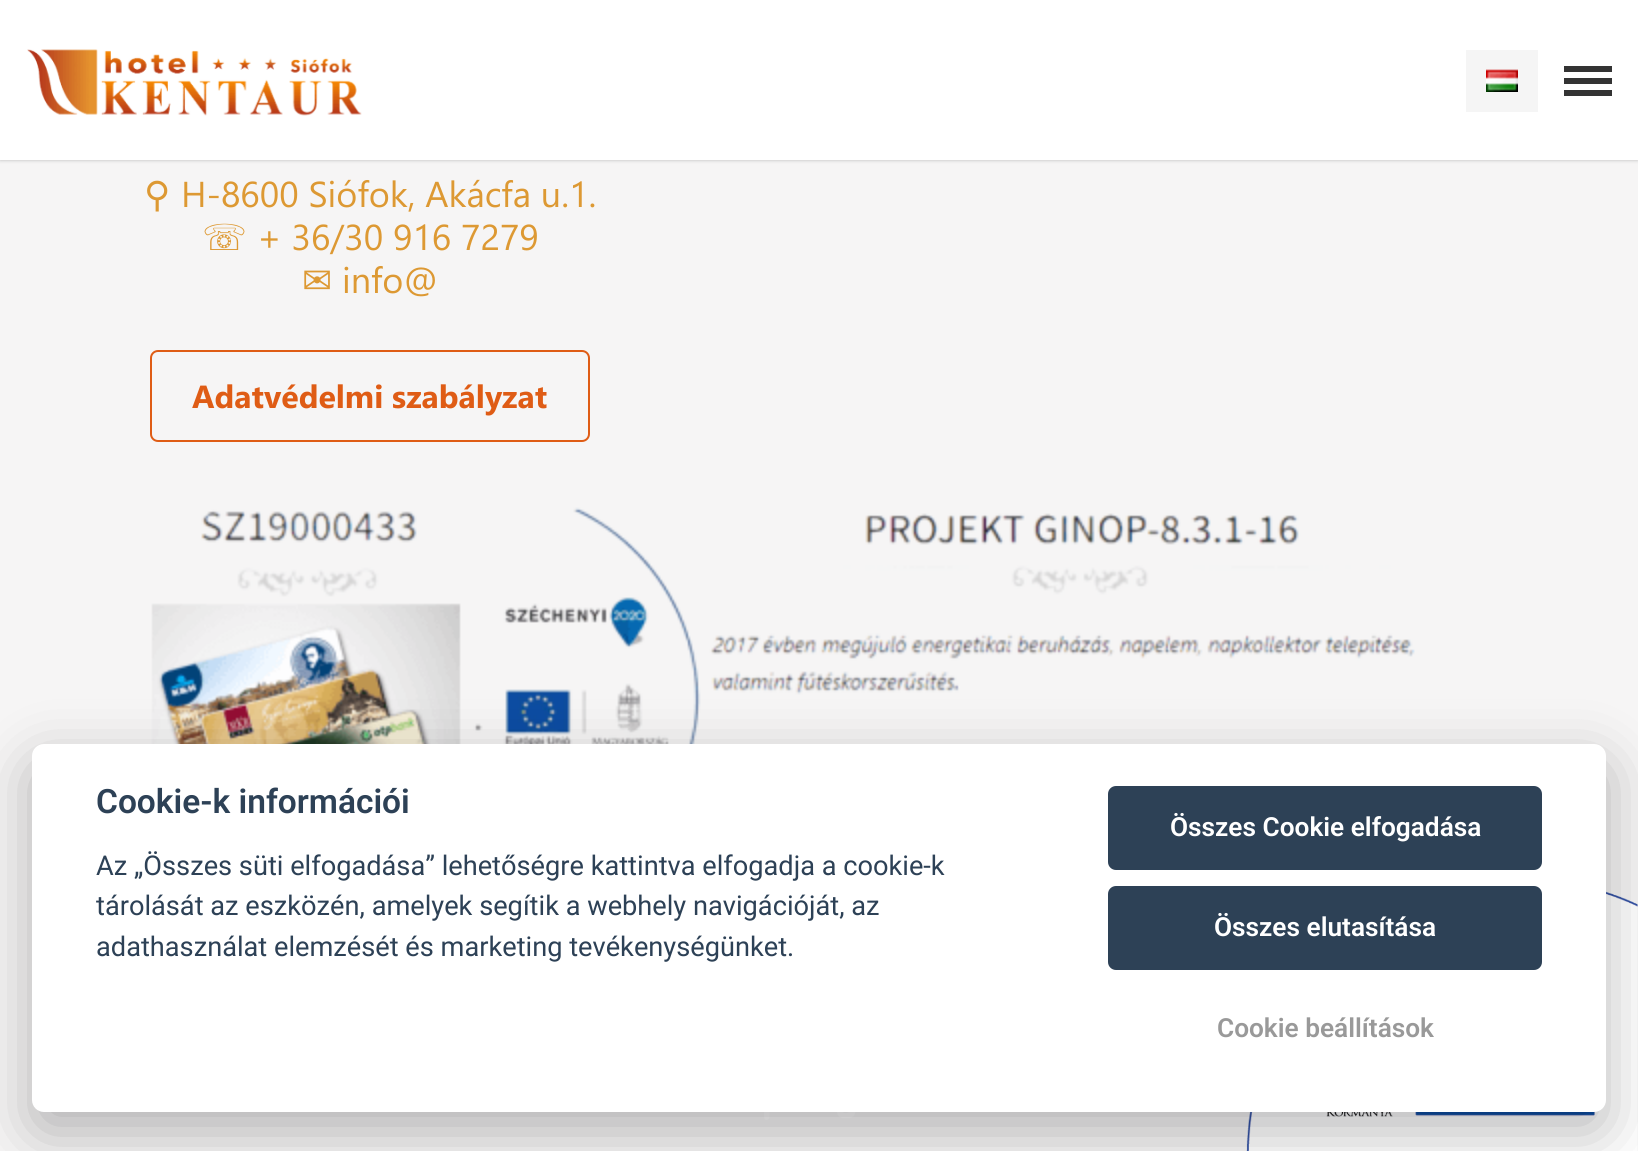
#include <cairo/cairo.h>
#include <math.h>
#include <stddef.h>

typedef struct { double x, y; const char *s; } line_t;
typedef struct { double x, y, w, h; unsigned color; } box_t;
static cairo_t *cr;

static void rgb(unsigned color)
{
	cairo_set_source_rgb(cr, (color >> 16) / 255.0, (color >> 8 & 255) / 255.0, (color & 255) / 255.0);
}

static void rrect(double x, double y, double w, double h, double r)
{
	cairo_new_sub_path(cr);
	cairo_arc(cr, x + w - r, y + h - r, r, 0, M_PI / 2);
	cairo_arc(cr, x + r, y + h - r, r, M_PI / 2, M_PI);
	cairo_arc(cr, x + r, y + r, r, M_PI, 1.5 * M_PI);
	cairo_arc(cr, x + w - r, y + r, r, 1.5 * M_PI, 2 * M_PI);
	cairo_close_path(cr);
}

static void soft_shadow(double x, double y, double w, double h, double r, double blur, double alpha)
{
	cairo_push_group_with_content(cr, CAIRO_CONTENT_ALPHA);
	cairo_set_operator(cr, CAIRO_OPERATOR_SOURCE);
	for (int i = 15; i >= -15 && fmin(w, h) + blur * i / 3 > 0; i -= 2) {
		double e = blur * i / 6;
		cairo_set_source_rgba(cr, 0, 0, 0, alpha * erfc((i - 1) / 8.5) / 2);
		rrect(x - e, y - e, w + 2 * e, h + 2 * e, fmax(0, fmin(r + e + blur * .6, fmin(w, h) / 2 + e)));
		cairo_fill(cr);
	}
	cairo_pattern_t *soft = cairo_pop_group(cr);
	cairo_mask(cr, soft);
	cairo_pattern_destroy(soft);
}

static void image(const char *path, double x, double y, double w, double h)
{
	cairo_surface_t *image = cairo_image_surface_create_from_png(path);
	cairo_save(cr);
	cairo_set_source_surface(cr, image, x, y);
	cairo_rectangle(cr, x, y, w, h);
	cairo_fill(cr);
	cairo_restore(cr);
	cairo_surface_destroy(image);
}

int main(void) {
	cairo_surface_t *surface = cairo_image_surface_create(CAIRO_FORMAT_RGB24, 1638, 1151);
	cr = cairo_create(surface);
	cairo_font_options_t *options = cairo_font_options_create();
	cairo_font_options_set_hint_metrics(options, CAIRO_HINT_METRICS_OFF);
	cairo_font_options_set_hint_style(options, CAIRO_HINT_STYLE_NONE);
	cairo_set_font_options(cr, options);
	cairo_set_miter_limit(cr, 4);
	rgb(0xf6f5f5);
	cairo_paint(cr);
	rgb(0x000000);
	soft_shadow(0, 0, 1638, 160, 0, 2, 0.25);
	rgb(0xffffff);
	cairo_rectangle(cr, 0, 0, 1638, 160);
	cairo_fill(cr);
	image("img/1.png", 27, 49, 335, 67);
	rgb(0xf5f5f5);
	cairo_rectangle(cr, 1466, 50, 72, 62);
	cairo_fill(cr);
	image("img/2.png", 1486, 69, 32, 23);
	{
		static const box_t items[] = {
			{1564, 78, 48, 6, 0x333333},
			{1564, 66, 48, 6, 0x333333},
			{1564, 90, 48, 6, 0x333333},
		};
		for (size_t i = 0; i < sizeof items / sizeof *items; i++) {
			rgb(items[i].color);
			cairo_rectangle(cr, items[i].x, items[i].y, items[i].w, items[i].h);
			cairo_fill(cr);
		}
	}
	rrect(151, 351, 438, 90, 7);
	rgb(0xdf5c15);
	cairo_stroke(cr);
	image("img/3.png", 151, 507, 1264, 237);
	image("img/4.png", 764, 1112, 92, 8);
	image("img/5.png", 1246, 891, 392, 260);
	rgb(0x020203);
	soft_shadow(32, 764, 1574, 368, 12, 30, 0.28);
	rgb(0xffffff);
	rrect(32, 744, 1574, 368, 12);
	cairo_fill(cr);
	rgb(0x2d4156);
	rrect(1108, 786, 434, 84, 8);
	cairo_fill(cr);
	rrect(1108, 886, 434, 84, 8);
	cairo_fill(cr);
	cairo_select_font_face(cr, "DejaVu Sans", CAIRO_FONT_SLANT_NORMAL, CAIRO_FONT_WEIGHT_NORMAL);
	cairo_set_font_size(cr, 36);
	rgb(0xdd9933);
	cairo_move_to(cr, 144, 207);
	cairo_show_text(cr, "⚲");
	cairo_select_font_face(cr, "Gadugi", CAIRO_FONT_SLANT_NORMAL, CAIRO_FONT_WEIGHT_NORMAL);
	cairo_move_to(cr, 181, 207);
	cairo_show_text(cr, "H-8600 Siófok, Akácfa u.1.");
	cairo_select_font_face(cr, "DejaVu Sans", CAIRO_FONT_SLANT_NORMAL, CAIRO_FONT_WEIGHT_NORMAL);
	cairo_move_to(cr, 202, 250);
	cairo_show_text(cr, "☏");
	cairo_select_font_face(cr, "Gadugi", CAIRO_FONT_SLANT_NORMAL, CAIRO_FONT_WEIGHT_NORMAL);
	cairo_move_to(cr, 257, 250);
	cairo_show_text(cr, "+ 36/30 916 7279");
	cairo_select_font_face(cr, "DejaVu Sans", CAIRO_FONT_SLANT_NORMAL, CAIRO_FONT_WEIGHT_NORMAL);
	cairo_move_to(cr, 302, 293);
	cairo_show_text(cr, "✉");
	cairo_select_font_face(cr, "Gadugi", CAIRO_FONT_SLANT_NORMAL, CAIRO_FONT_WEIGHT_NORMAL);
	cairo_move_to(cr, 342, 293);
	cairo_show_text(cr, "info@");
	cairo_select_font_face(cr, "Gadugi", CAIRO_FONT_SLANT_NORMAL, CAIRO_FONT_WEIGHT_BOLD);
	cairo_set_font_size(cr, 32);
	rgb(0xdf5c15);
	cairo_move_to(cr, 192, 408);
	cairo_show_text(cr, "Adatvédelmi szabályzat");
	cairo_select_font_face(cr, "Roboto SemiBold", CAIRO_FONT_SLANT_NORMAL, CAIRO_FONT_WEIGHT_NORMAL);
	cairo_set_font_size(cr, 33.5);
	rgb(0x2d4156);
	cairo_move_to(cr, 96, 813);
	cairo_show_text(cr, "Cookie-k információi");
	cairo_select_font_face(cr, "Roboto", CAIRO_FONT_SLANT_NORMAL, CAIRO_FONT_WEIGHT_NORMAL);
	cairo_set_font_size(cr, 27.2);
	{
		static const line_t items[] = {
			{96, 875, "Az „Összes süti elfogadása” lehetőségre kattintva elfogadja a cookie-k"},
			{96, 915, "tárolását az eszközén, amelyek segítik a webhely navigációját, az"},
			{96, 956, "adathasználat elemzését és marketing tevékenységünket."},
		};
		for (size_t i = 0; i < sizeof items / sizeof *items; i++) {
			cairo_move_to(cr, items[i].x, items[i].y);
			cairo_show_text(cr, items[i].s);
		}
	}
	cairo_select_font_face(cr, "Roboto SemiBold", CAIRO_FONT_SLANT_NORMAL, CAIRO_FONT_WEIGHT_NORMAL);
	cairo_set_font_size(cr, 26.25);
	rgb(0xffffff);
	cairo_move_to(cr, 1170, 836);
	cairo_show_text(cr, "Összes Cookie elfogadása");
	cairo_move_to(cr, 1214, 936);
	cairo_show_text(cr, "Összes elutasítása");
	rgb(0x999999);
	cairo_move_to(cr, 1217, 1037);
	cairo_show_text(cr, "Cookie beállítások");
	cairo_surface_write_to_png(surface, "page.png");
	cairo_font_options_destroy(options);
	cairo_destroy(cr);
	cairo_surface_destroy(surface);
	return 0;
}
